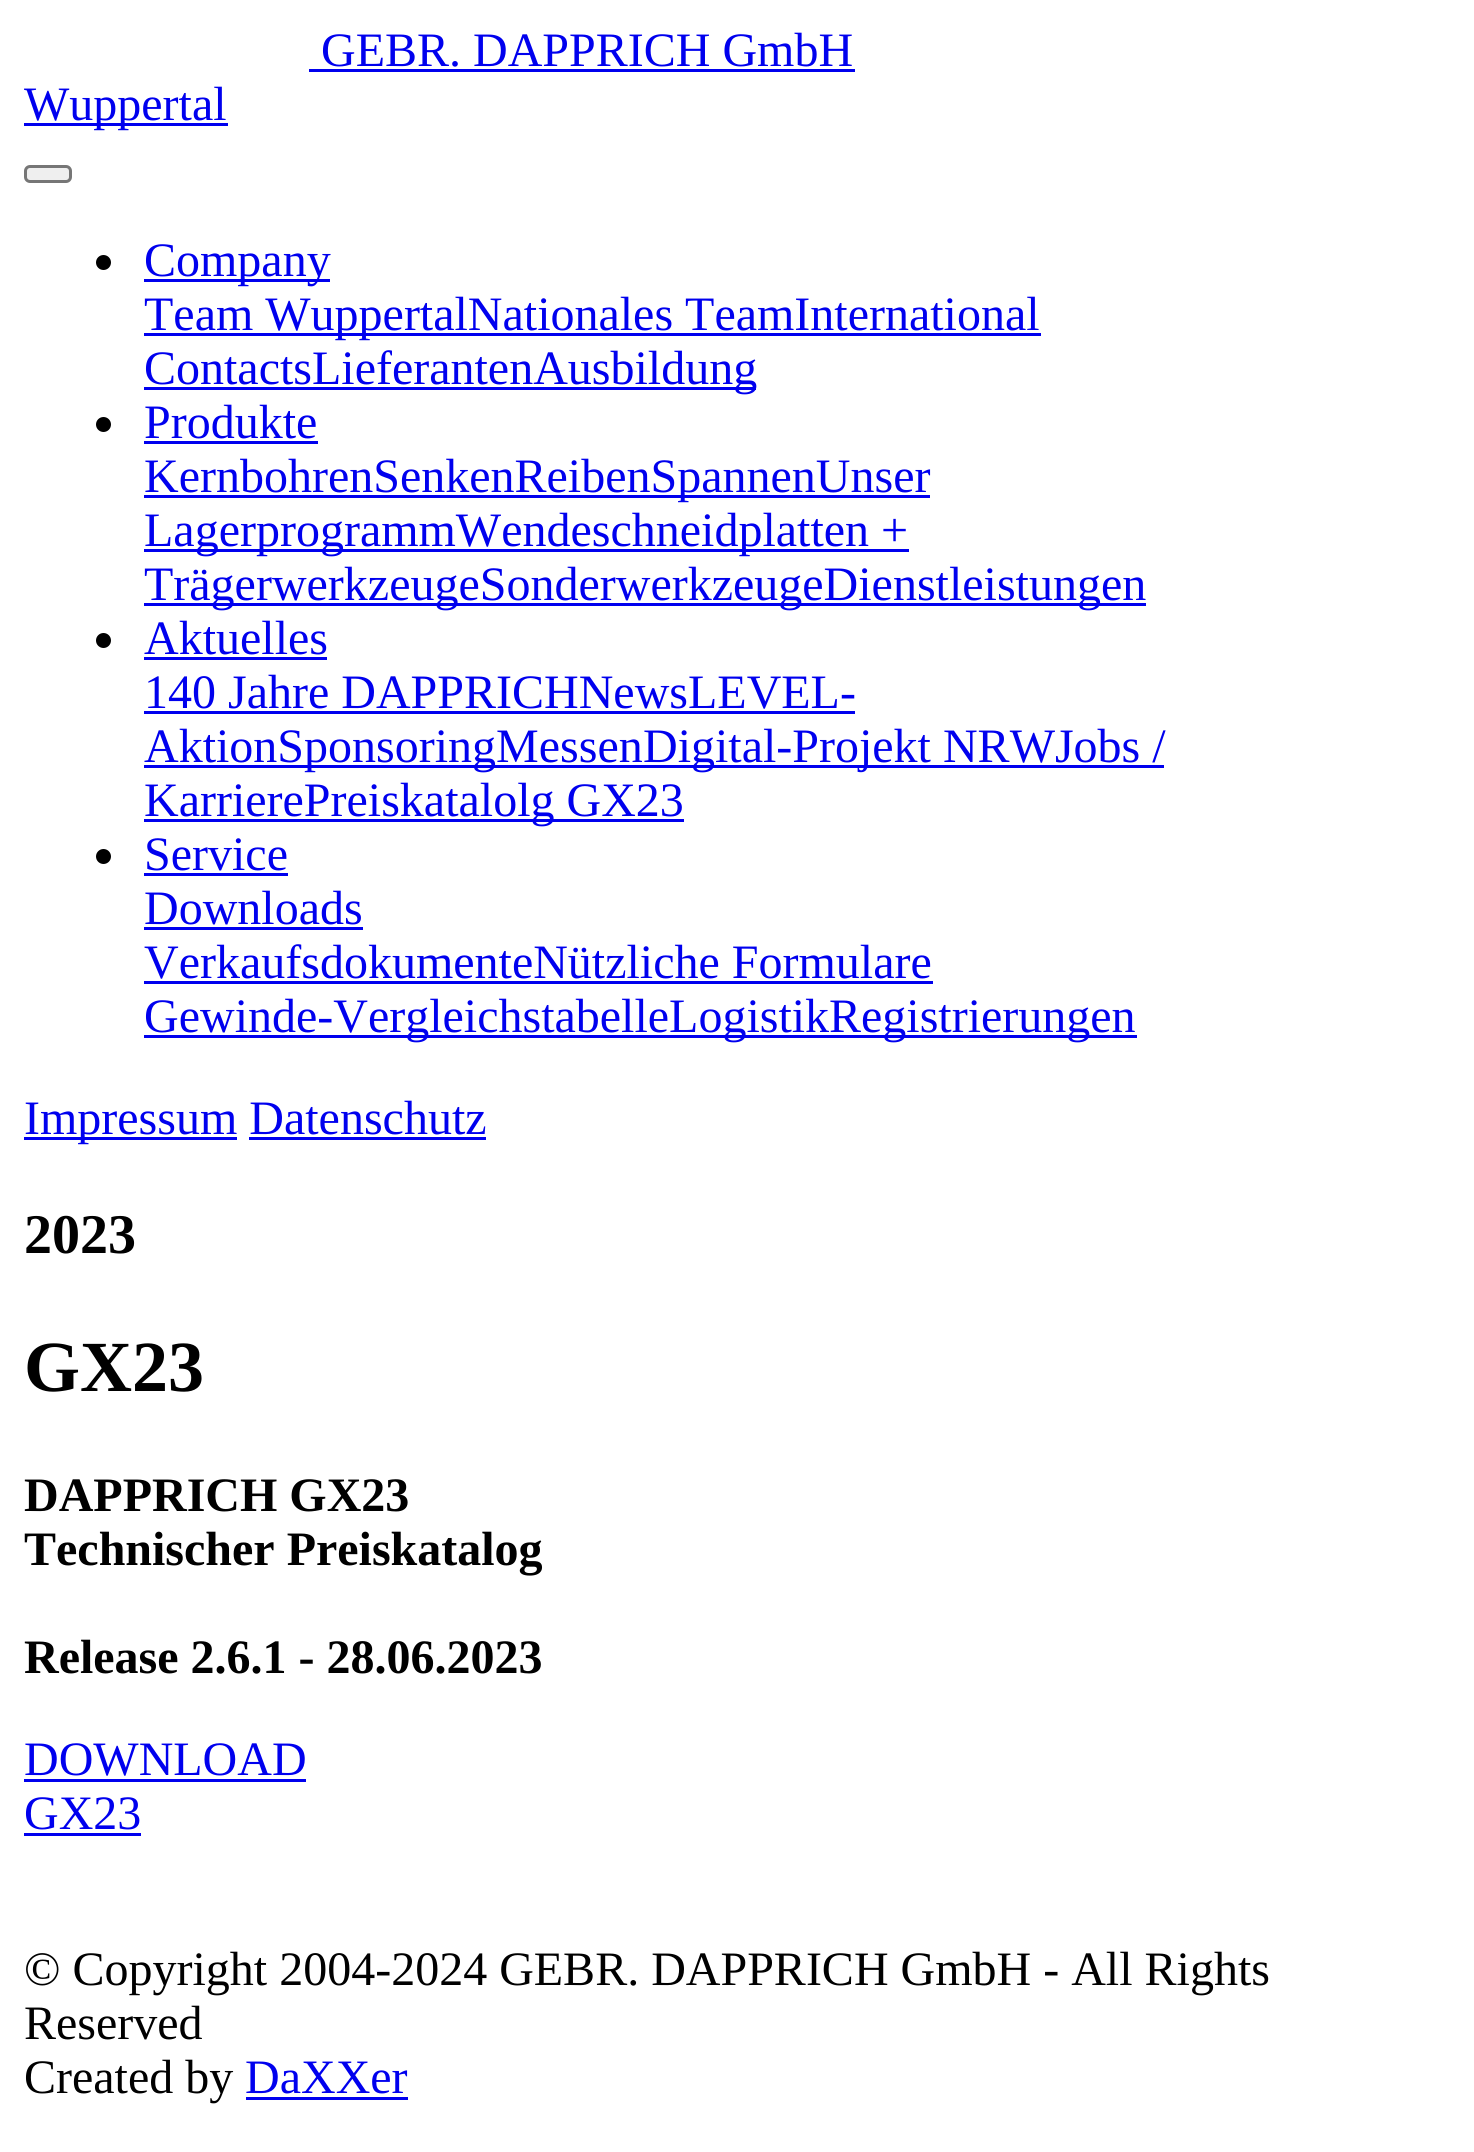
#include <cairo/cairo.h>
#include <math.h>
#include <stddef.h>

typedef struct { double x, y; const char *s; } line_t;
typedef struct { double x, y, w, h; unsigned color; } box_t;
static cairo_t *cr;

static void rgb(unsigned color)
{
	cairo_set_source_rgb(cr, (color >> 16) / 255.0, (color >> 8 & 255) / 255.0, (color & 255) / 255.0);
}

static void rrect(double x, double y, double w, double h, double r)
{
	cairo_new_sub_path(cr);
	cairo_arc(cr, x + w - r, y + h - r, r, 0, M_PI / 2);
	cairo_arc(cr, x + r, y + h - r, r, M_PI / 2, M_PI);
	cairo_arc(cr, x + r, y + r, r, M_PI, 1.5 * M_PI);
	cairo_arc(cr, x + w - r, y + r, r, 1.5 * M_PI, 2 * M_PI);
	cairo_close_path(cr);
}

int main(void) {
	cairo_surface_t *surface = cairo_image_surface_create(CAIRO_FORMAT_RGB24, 1474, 2152);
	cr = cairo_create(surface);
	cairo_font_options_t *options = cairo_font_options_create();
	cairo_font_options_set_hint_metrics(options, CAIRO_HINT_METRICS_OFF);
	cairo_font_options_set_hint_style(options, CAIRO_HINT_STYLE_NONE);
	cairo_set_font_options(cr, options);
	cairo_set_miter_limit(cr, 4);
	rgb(0xffffff);
	cairo_paint(cr);
	rgb(0x0000ee);
	cairo_rectangle(cr, 309, 69, 546, 3);
	cairo_fill(cr);
	cairo_rectangle(cr, 24, 123, 204, 3);
	cairo_fill(cr);
	rgb(0xefefef);
	rrect(25.5, 166.5, 45, 15, 4.5);
	cairo_fill_preserve(cr);
	rgb(0x767676);
	cairo_set_line_width(cr, 3);
	cairo_stroke(cr);
	rgb(0x000000);
	cairo_arc(cr, 103.5, 262.5, 7.5, 0, 2 * M_PI);
	cairo_fill(cr);
	{
		static const box_t items[] = {
			{144, 279, 186, 3, 0x0000ee},
			{144, 333, 897, 3, 0x0000ee},
			{144, 387, 612, 3, 0x0000ee},
		};
		for (size_t i = 0; i < sizeof items / sizeof *items; i++) {
			rgb(items[i].color);
			cairo_rectangle(cr, items[i].x, items[i].y, items[i].w, items[i].h);
			cairo_fill(cr);
		}
	}
	rgb(0x000000);
	cairo_arc(cr, 103.5, 424.5, 7.5, 0, 2 * M_PI);
	cairo_fill(cr);
	{
		static const box_t items[] = {
			{144, 441, 174, 3, 0x0000ee},
			{144, 495, 786, 3, 0x0000ee},
			{144, 549, 765, 3, 0x0000ee},
			{144, 603, 1002, 3, 0x0000ee},
		};
		for (size_t i = 0; i < sizeof items / sizeof *items; i++) {
			rgb(items[i].color);
			cairo_rectangle(cr, items[i].x, items[i].y, items[i].w, items[i].h);
			cairo_fill(cr);
		}
	}
	rgb(0x000000);
	cairo_arc(cr, 103.5, 640.5, 7.5, 0, 2 * M_PI);
	cairo_fill(cr);
	{
		static const box_t items[] = {
			{144, 657, 183, 3, 0x0000ee},
			{144, 711, 711, 3, 0x0000ee},
			{144, 765, 351, 3, 0x0000ee},
			{495, 765, 669, 3, 0x0000ee},
			{144, 819, 540, 3, 0x0000ee},
		};
		for (size_t i = 0; i < sizeof items / sizeof *items; i++) {
			rgb(items[i].color);
			cairo_rectangle(cr, items[i].x, items[i].y, items[i].w, items[i].h);
			cairo_fill(cr);
		}
	}
	rgb(0x000000);
	cairo_arc(cr, 103.5, 856.5, 7.5, 0, 2 * M_PI);
	cairo_fill(cr);
	{
		static const box_t items[] = {
			{144, 873, 144, 3, 0x0000ee},
			{144, 927, 219, 3, 0x0000ee},
			{144, 981, 789, 3, 0x0000ee},
			{144, 1035, 684, 3, 0x0000ee},
			{828, 1035, 309, 3, 0x0000ee},
			{24, 1137, 213, 3, 0x0000ee},
			{249, 1137, 237, 3, 0x0000ee},
			{24, 1779, 282, 3, 0x0000ee},
			{24, 1833, 117, 3, 0x0000ee},
			{246, 2097, 162, 3, 0x0000ee},
		};
		for (size_t i = 0; i < sizeof items / sizeof *items; i++) {
			rgb(items[i].color);
			cairo_rectangle(cr, items[i].x, items[i].y, items[i].w, items[i].h);
			cairo_fill(cr);
		}
	}
	cairo_select_font_face(cr, "Liberation Serif", CAIRO_FONT_SLANT_NORMAL, CAIRO_FONT_WEIGHT_NORMAL);
	cairo_set_font_size(cr, 48);
	{
		static const line_t items[] = {
			{321, 66, "GEBR. DAPPRICH GmbH"},
			{24, 120, "Wuppertal"},
			{144, 276, "Company"},
			{144, 330, "Team WuppertalNationales TeamInternational"},
			{144, 384, "ContactsLieferantenAusbildung"},
			{144, 438, "Produkte"},
			{144, 492, "KernbohrenSenkenReibenSpannenUnser"},
			{144, 546, "LagerprogrammWendeschneidplatten +"},
			{144, 600, "TrägerwerkzeugeSonderwerkzeugeDienstleistungen"},
			{144, 654, "Aktuelles"},
			{144, 708, "140 Jahre DAPPRICHNewsLEVEL-"},
			{144, 762, "AktionSponsoringMessen"},
			{643, 762, "Digital-Projekt NRWJobs /"},
			{144, 816, "KarrierePreiskatalolg GX23"},
			{144, 870, "Service"},
			{144, 924, "Downloads"},
			{144, 978, "VerkaufsdokumenteNützliche Formulare"},
			{144, 1032, "Gewinde-VergleichstabelleLogistik"},
			{829, 1032, "Registrierungen"},
			{24, 1134, "Impressum Datenschutz"},
		};
		for (size_t i = 0; i < sizeof items / sizeof *items; i++) {
			cairo_move_to(cr, items[i].x, items[i].y);
			cairo_show_text(cr, items[i].s);
		}
	}
	cairo_select_font_face(cr, "Liberation Serif", CAIRO_FONT_SLANT_NORMAL, CAIRO_FONT_WEIGHT_BOLD);
	cairo_set_font_size(cr, 56);
	rgb(0x000000);
	cairo_move_to(cr, 24, 1253);
	cairo_show_text(cr, "2023");
	cairo_set_font_size(cr, 72);
	cairo_move_to(cr, 24, 1391);
	cairo_show_text(cr, "GX23");
	cairo_set_font_size(cr, 48);
	{
		static const line_t items[] = {
			{24, 1511, "DAPPRICH GX23"},
			{24, 1565, "Technischer Preiskatalog"},
			{24, 1673, "Release 2.6.1 - 28.06.2023"},
		};
		for (size_t i = 0; i < sizeof items / sizeof *items; i++) {
			cairo_move_to(cr, items[i].x, items[i].y);
			cairo_show_text(cr, items[i].s);
		}
	}
	cairo_select_font_face(cr, "Liberation Serif", CAIRO_FONT_SLANT_NORMAL, CAIRO_FONT_WEIGHT_NORMAL);
	rgb(0x0000ee);
	cairo_move_to(cr, 24, 1775);
	cairo_show_text(cr, "DOWNLOAD");
	cairo_move_to(cr, 24, 1829);
	cairo_show_text(cr, "GX23");
	rgb(0x000000);
	{
		static const line_t items[] = {
			{24, 1985, "© Copyright 2004-2024 GEBR. DAPPRICH GmbH - All Rights"},
			{24, 2039, "Reserved"},
			{24, 2093, "Created by"},
		};
		for (size_t i = 0; i < sizeof items / sizeof *items; i++) {
			cairo_move_to(cr, items[i].x, items[i].y);
			cairo_show_text(cr, items[i].s);
		}
	}
	rgb(0x0000ee);
	cairo_move_to(cr, 245, 2093);
	cairo_show_text(cr, "DaXXer");
	cairo_surface_write_to_png(surface, "page.png");
	cairo_font_options_destroy(options);
	cairo_destroy(cr);
	cairo_surface_destroy(surface);
	return 0;
}
